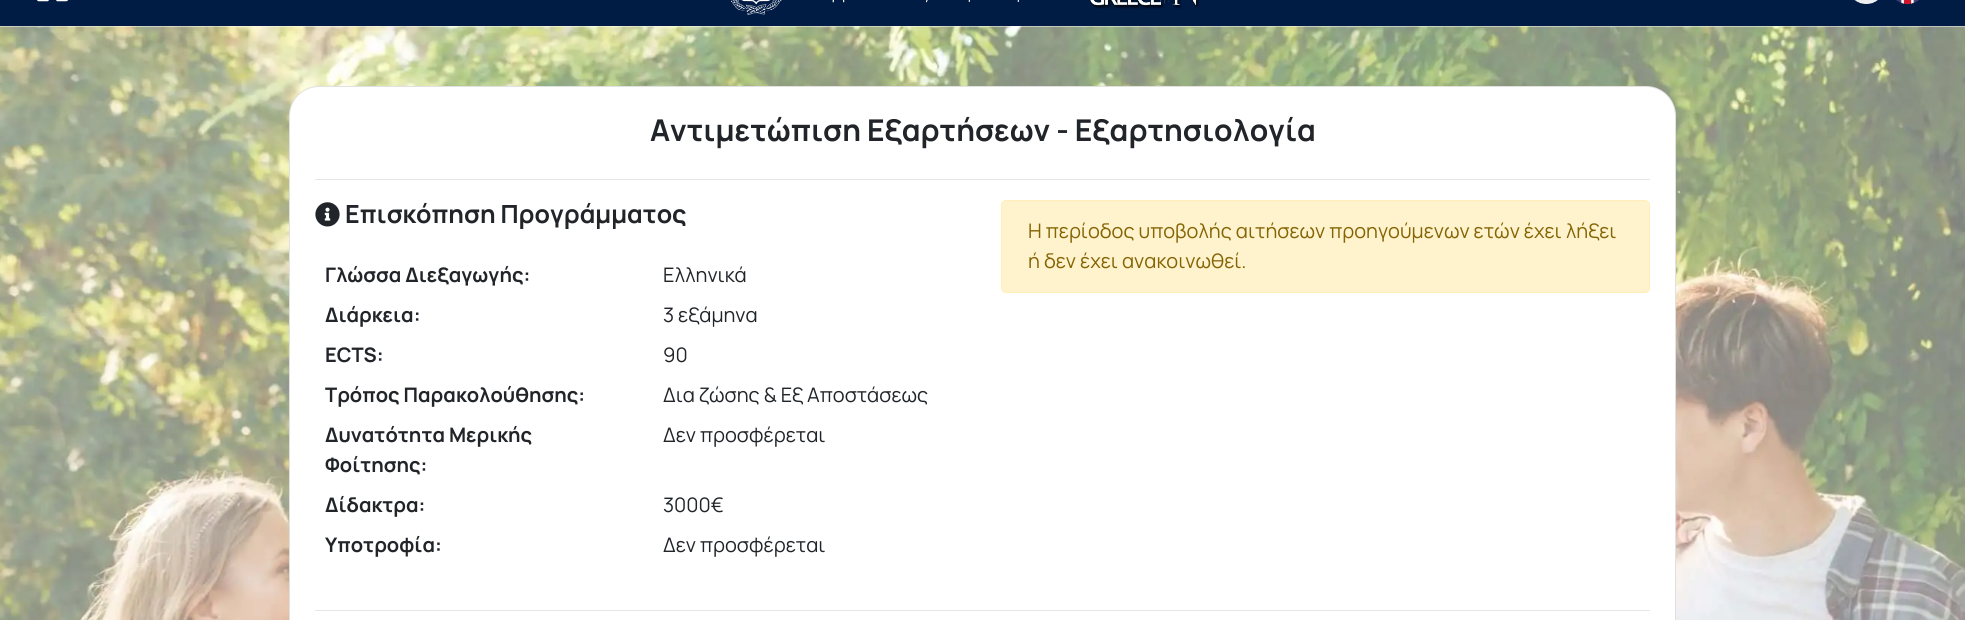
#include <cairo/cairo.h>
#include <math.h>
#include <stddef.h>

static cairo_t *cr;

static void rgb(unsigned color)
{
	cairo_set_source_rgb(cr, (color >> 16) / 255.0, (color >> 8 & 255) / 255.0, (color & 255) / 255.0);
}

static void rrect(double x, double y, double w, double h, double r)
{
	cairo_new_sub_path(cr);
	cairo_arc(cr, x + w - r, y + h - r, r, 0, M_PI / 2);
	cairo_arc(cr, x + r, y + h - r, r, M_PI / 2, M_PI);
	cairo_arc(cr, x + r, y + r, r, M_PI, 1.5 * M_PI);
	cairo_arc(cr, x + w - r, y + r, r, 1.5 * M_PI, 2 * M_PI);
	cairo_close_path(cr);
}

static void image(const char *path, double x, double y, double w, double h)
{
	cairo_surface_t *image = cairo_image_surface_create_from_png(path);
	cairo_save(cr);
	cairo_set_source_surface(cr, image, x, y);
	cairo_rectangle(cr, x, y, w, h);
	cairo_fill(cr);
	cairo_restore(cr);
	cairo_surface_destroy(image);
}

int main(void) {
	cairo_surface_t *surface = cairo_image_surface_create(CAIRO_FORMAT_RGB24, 1965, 620);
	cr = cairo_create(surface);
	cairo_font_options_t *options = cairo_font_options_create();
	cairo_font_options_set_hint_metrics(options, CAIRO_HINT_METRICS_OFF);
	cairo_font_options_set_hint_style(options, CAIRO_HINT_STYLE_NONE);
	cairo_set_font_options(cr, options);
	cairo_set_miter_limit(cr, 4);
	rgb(0xffffff);
	cairo_paint(cr);
	rgb(0x001b44);
	cairo_rectangle(cr, 0, 0, 1965, 26);
	cairo_fill(cr);
	image("img/1.png", 37, 0, 31, 2);
	image("img/2.png", 731, 0, 288, 15);
	image("img/3.png", 1089, 0, 111, 9);
	image("img/4.png", 1854, 0, 24, 4);
	image("img/5.png", 1896, 0, 23, 4);
	image("img/6.png", 0, 26, 1965, 594);
	rgb(0xffffff);
	rrect(289, 86, 1387, 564, 30);
	cairo_fill(cr);
	rrect(289.5, 86.5, 1386, 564, 29.5);
	cairo_set_source_rgba(cr, 0, 0, 0, 0.12);
	cairo_set_line_width(cr, 1);
	cairo_stroke(cr);
	rgb(0xe6e6e6);
	cairo_rectangle(cr, 315, 179, 1335, 1);
	cairo_fill(cr);
	image("img/7.png", 315, 202, 25, 25);
	rgb(0xfff3cd);
	rrect(1001.5, 200.5, 648, 92, 4.5);
	cairo_fill_preserve(cr);
	rgb(0xffeeba);
	cairo_stroke(cr);
	rgb(0xe6e6e6);
	cairo_rectangle(cr, 315, 610, 1335, 1);
	cairo_fill(cr);
	cairo_select_font_face(cr, "Manrope", CAIRO_FONT_SLANT_NORMAL, CAIRO_FONT_WEIGHT_BOLD);
	cairo_set_font_size(cr, 30);
	rgb(0x212529);
	cairo_move_to(cr, 650, 141);
	cairo_show_text(cr, "Αντιμετώπιση Εξαρτήσεων - Εξαρτησιολογία");
	cairo_set_font_size(cr, 25);
	cairo_move_to(cr, 345, 223);
	cairo_show_text(cr, "Επισκόπηση Προγράμματος");
	cairo_set_font_size(cr, 20);
	cairo_move_to(cr, 325, 282);
	cairo_show_text(cr, "Γλώσσα Διεξαγωγής:");
	cairo_select_font_face(cr, "Manrope", CAIRO_FONT_SLANT_NORMAL, CAIRO_FONT_WEIGHT_NORMAL);
	cairo_move_to(cr, 663, 282);
	cairo_show_text(cr, "Ελληνικά");
	cairo_select_font_face(cr, "Manrope", CAIRO_FONT_SLANT_NORMAL, CAIRO_FONT_WEIGHT_BOLD);
	cairo_move_to(cr, 325, 322);
	cairo_show_text(cr, "Διάρκεια:");
	cairo_select_font_face(cr, "Manrope", CAIRO_FONT_SLANT_NORMAL, CAIRO_FONT_WEIGHT_NORMAL);
	cairo_move_to(cr, 663, 322);
	cairo_show_text(cr, "3 εξάμηνα");
	cairo_select_font_face(cr, "Manrope", CAIRO_FONT_SLANT_NORMAL, CAIRO_FONT_WEIGHT_BOLD);
	cairo_move_to(cr, 325, 362);
	cairo_show_text(cr, "ECTS:");
	cairo_select_font_face(cr, "Manrope", CAIRO_FONT_SLANT_NORMAL, CAIRO_FONT_WEIGHT_NORMAL);
	cairo_move_to(cr, 663, 362);
	cairo_show_text(cr, "90");
	cairo_select_font_face(cr, "Manrope", CAIRO_FONT_SLANT_NORMAL, CAIRO_FONT_WEIGHT_BOLD);
	cairo_move_to(cr, 325, 402);
	cairo_show_text(cr, "Τρόπος Παρακολούθησης:");
	cairo_select_font_face(cr, "Manrope", CAIRO_FONT_SLANT_NORMAL, CAIRO_FONT_WEIGHT_NORMAL);
	cairo_move_to(cr, 663, 402);
	cairo_show_text(cr, "Δια ζώσης & Εξ Αποστάσεως");
	cairo_select_font_face(cr, "Manrope", CAIRO_FONT_SLANT_NORMAL, CAIRO_FONT_WEIGHT_BOLD);
	cairo_move_to(cr, 325, 442);
	cairo_show_text(cr, "Δυνατότητα Μερικής");
	cairo_move_to(cr, 325, 472);
	cairo_show_text(cr, "Φοίτησης:");
	cairo_select_font_face(cr, "Manrope", CAIRO_FONT_SLANT_NORMAL, CAIRO_FONT_WEIGHT_NORMAL);
	cairo_move_to(cr, 663, 442);
	cairo_show_text(cr, "Δεν προσφέρεται");
	cairo_select_font_face(cr, "Manrope", CAIRO_FONT_SLANT_NORMAL, CAIRO_FONT_WEIGHT_BOLD);
	cairo_move_to(cr, 325, 512);
	cairo_show_text(cr, "Δίδακτρα:");
	cairo_select_font_face(cr, "Manrope", CAIRO_FONT_SLANT_NORMAL, CAIRO_FONT_WEIGHT_NORMAL);
	cairo_move_to(cr, 663, 512);
	cairo_show_text(cr, "3000€");
	cairo_select_font_face(cr, "Manrope", CAIRO_FONT_SLANT_NORMAL, CAIRO_FONT_WEIGHT_BOLD);
	cairo_move_to(cr, 325, 552);
	cairo_show_text(cr, "Υποτροφία:");
	cairo_select_font_face(cr, "Manrope", CAIRO_FONT_SLANT_NORMAL, CAIRO_FONT_WEIGHT_NORMAL);
	cairo_move_to(cr, 663, 552);
	cairo_show_text(cr, "Δεν προσφέρεται");
	rgb(0x856404);
	cairo_move_to(cr, 1028, 238);
	cairo_show_text(cr, "Η περίοδος υποβολής αιτήσεων προηγούμενων ετών έχει λήξει");
	cairo_move_to(cr, 1028, 268);
	cairo_show_text(cr, "ή δεν έχει ανακοινωθεί.");
	cairo_surface_write_to_png(surface, "page.png");
	cairo_font_options_destroy(options);
	cairo_destroy(cr);
	cairo_surface_destroy(surface);
	return 0;
}
